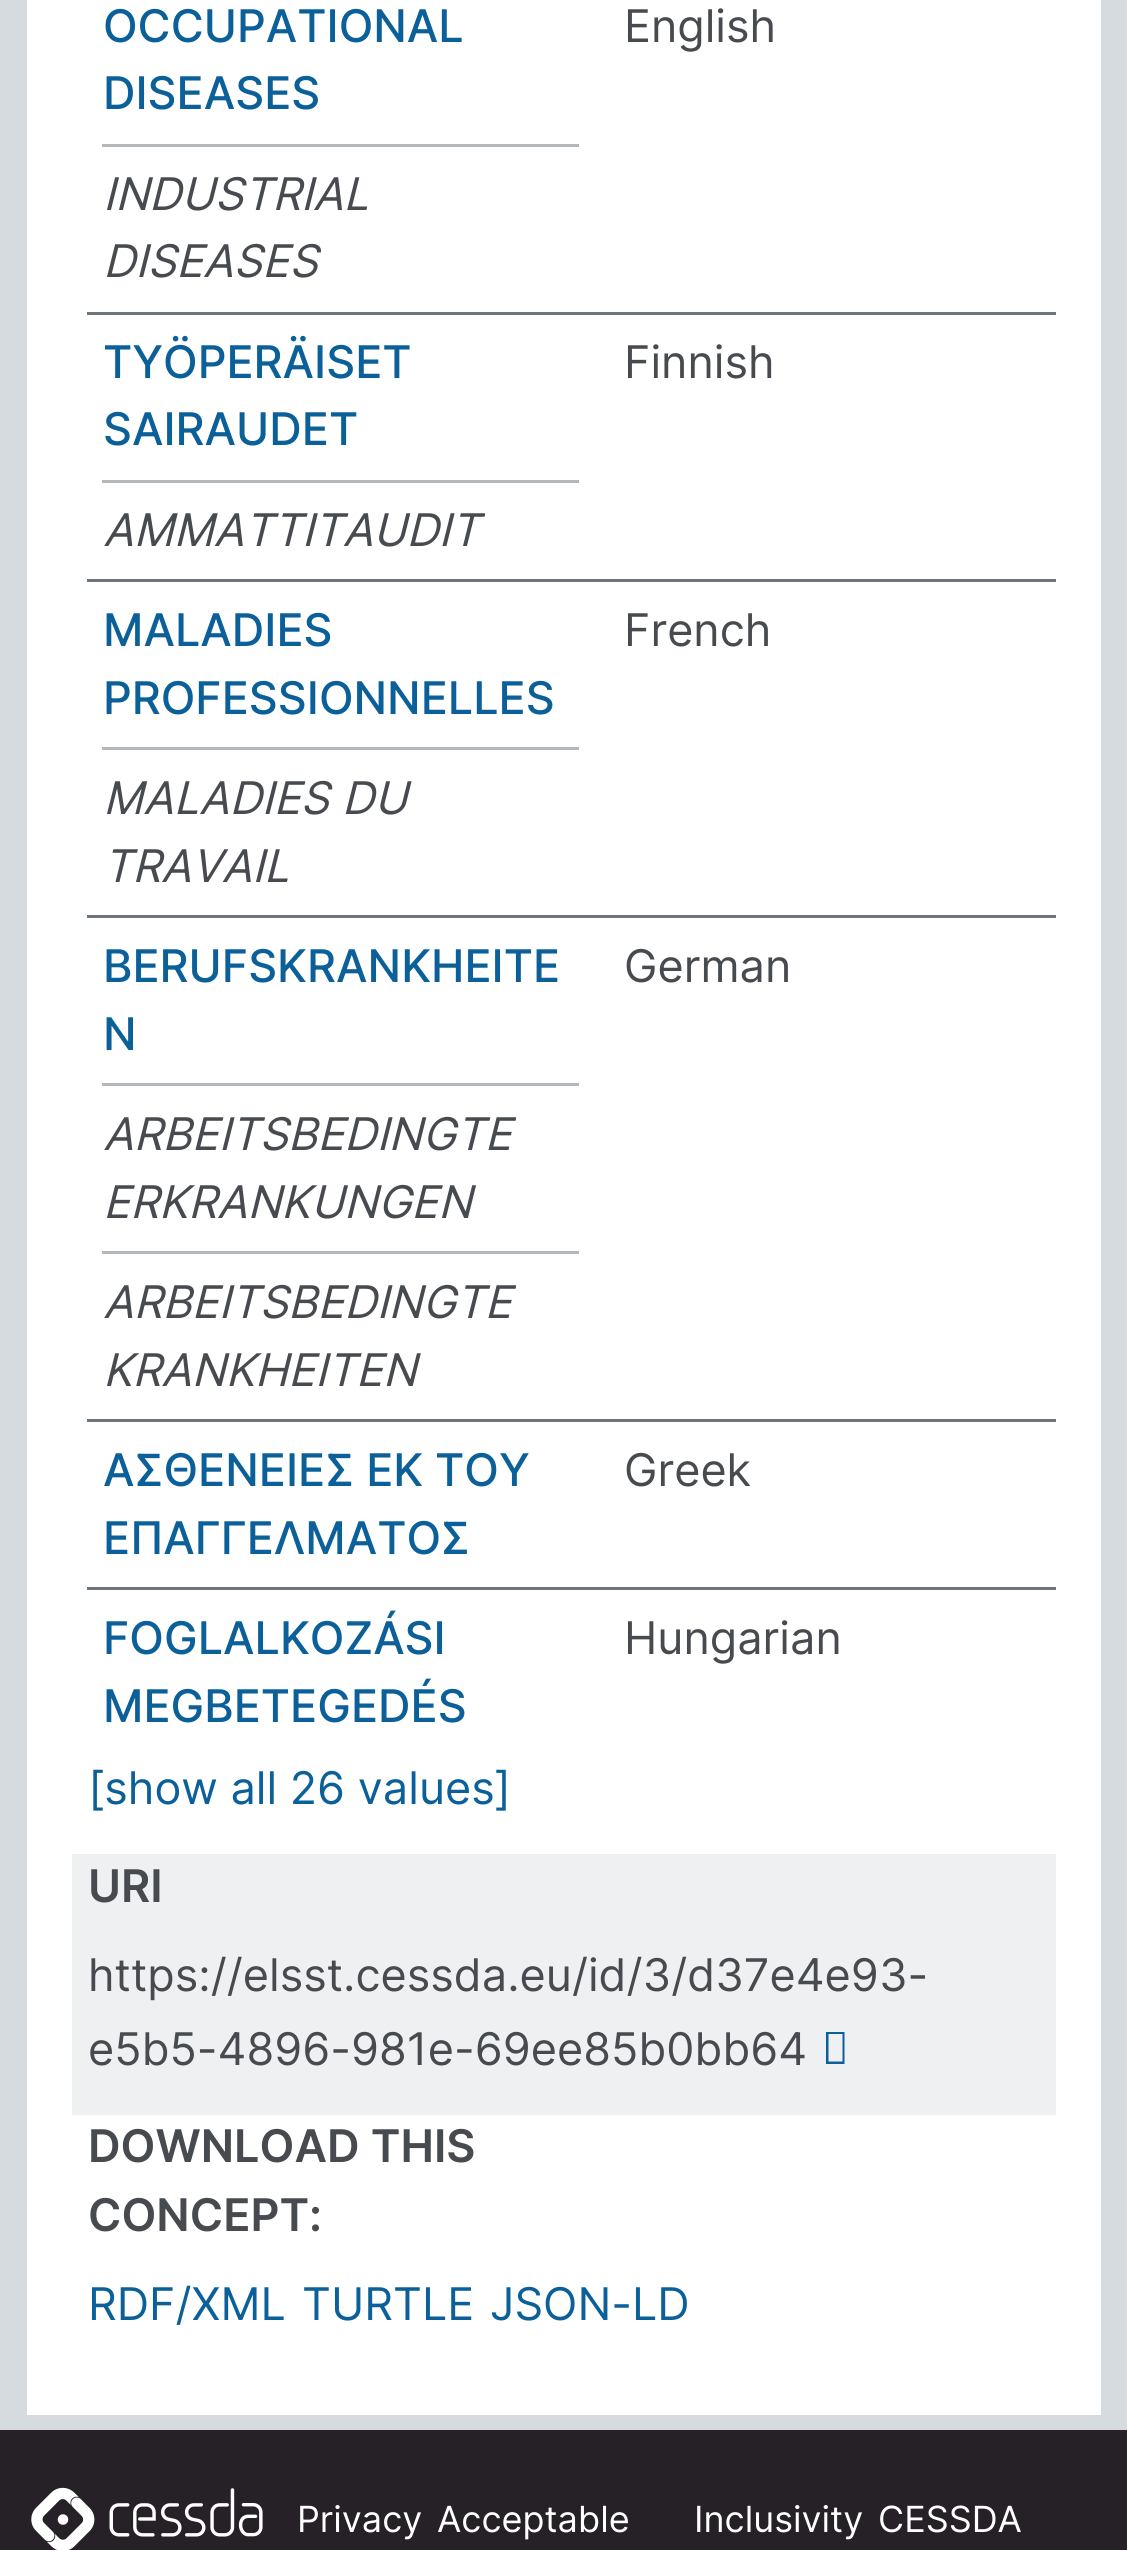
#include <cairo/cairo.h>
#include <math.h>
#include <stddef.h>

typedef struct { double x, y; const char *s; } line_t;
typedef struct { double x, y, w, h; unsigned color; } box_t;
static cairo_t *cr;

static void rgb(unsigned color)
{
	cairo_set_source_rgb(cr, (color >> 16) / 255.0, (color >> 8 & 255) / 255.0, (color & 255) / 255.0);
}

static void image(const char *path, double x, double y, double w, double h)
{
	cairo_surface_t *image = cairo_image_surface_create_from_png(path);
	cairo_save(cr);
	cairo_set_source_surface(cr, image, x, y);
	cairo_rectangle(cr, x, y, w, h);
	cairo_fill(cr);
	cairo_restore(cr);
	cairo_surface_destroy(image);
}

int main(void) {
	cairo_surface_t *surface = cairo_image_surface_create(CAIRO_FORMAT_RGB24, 1127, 2550);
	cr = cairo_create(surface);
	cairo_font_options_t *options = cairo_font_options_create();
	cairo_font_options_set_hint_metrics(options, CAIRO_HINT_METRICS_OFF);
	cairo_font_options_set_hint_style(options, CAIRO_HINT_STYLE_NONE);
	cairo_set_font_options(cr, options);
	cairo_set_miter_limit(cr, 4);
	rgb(0xd5dbde);
	cairo_paint(cr);
	{
		static const box_t items[] = {
			{27, 0, 1074, 2415, 0xffffff},
			{102, 144, 477, 3, 0xb3b8bd},
			{87, 312, 969, 3, 0x6c757d},
			{102, 480, 477, 3, 0xb3b8bd},
			{87, 579, 969, 3, 0x6c757d},
			{102, 747, 477, 3, 0xb3b8bd},
			{87, 915, 969, 3, 0x6c757d},
			{102, 1083, 477, 3, 0xb3b8bd},
			{102, 1251, 477, 3, 0xb3b8bd},
			{87, 1419, 969, 3, 0x6c757d},
			{87, 1587, 969, 3, 0x6c757d},
			{72, 1854, 984, 261, 0xeff0f1},
		};
		for (size_t i = 0; i < sizeof items / sizeof *items; i++) {
			rgb(items[i].color);
			cairo_rectangle(cr, items[i].x, items[i].y, items[i].w, items[i].h);
			cairo_fill(cr);
		}
	}
	rgb(0x0b6099);
	cairo_new_path(cr);
	cairo_move_to(cr, 826, 2064);
	cairo_line_to(cr, 826, 2032);
	cairo_line_to(cr, 844.5, 2032);
	cairo_line_to(cr, 844.5, 2064);
	cairo_close_path(cr);
	cairo_move_to(cr, 828.5, 2061.5);
	cairo_line_to(cr, 842.5, 2061.5);
	cairo_line_to(cr, 842.5, 2034);
	cairo_line_to(cr, 828.5, 2034);
	cairo_close_path(cr);
	cairo_fill(cr);
	rgb(0x262126);
	cairo_rectangle(cr, 0, 2430, 1127, 120);
	cairo_fill(cr);
	image("img/1.png", 31, 2487, 232, 63);
	cairo_select_font_face(cr, "Inter Medium", CAIRO_FONT_SLANT_NORMAL, CAIRO_FONT_WEIGHT_NORMAL);
	cairo_set_font_size(cr, 45);
	rgb(0x0b6099);
	cairo_move_to(cr, 103, 42);
	cairo_show_text(cr, "OCCUPATIONAL");
	cairo_move_to(cr, 103, 109);
	cairo_show_text(cr, "DISEASES");
	cairo_select_font_face(cr, "Inter", CAIRO_FONT_SLANT_NORMAL, CAIRO_FONT_WEIGHT_NORMAL);
	rgb(0x474b4f);
	cairo_move_to(cr, 624, 42);
	cairo_show_text(cr, "English");
	cairo_select_font_face(cr, "Inter", CAIRO_FONT_SLANT_ITALIC, CAIRO_FONT_WEIGHT_NORMAL);
	cairo_move_to(cr, 103, 210);
	cairo_show_text(cr, "INDUSTRIAL");
	cairo_move_to(cr, 103, 277);
	cairo_show_text(cr, "DISEASES");
	cairo_select_font_face(cr, "Inter Medium", CAIRO_FONT_SLANT_NORMAL, CAIRO_FONT_WEIGHT_NORMAL);
	rgb(0x0b6099);
	cairo_move_to(cr, 103, 378);
	cairo_show_text(cr, "TYÖPERÄISET");
	cairo_move_to(cr, 103, 445);
	cairo_show_text(cr, "SAIRAUDET");
	cairo_select_font_face(cr, "Inter", CAIRO_FONT_SLANT_NORMAL, CAIRO_FONT_WEIGHT_NORMAL);
	rgb(0x474b4f);
	cairo_move_to(cr, 624, 378);
	cairo_show_text(cr, "Finnish");
	cairo_select_font_face(cr, "Inter", CAIRO_FONT_SLANT_ITALIC, CAIRO_FONT_WEIGHT_NORMAL);
	cairo_move_to(cr, 103, 546);
	cairo_show_text(cr, "AMMATTITAUDIT");
	cairo_select_font_face(cr, "Inter Medium", CAIRO_FONT_SLANT_NORMAL, CAIRO_FONT_WEIGHT_NORMAL);
	rgb(0x0b6099);
	cairo_move_to(cr, 103, 646);
	cairo_show_text(cr, "MALADIES");
	cairo_move_to(cr, 103, 714);
	cairo_show_text(cr, "PROFESSIONNELLES");
	cairo_select_font_face(cr, "Inter", CAIRO_FONT_SLANT_NORMAL, CAIRO_FONT_WEIGHT_NORMAL);
	rgb(0x474b4f);
	cairo_move_to(cr, 624, 646);
	cairo_show_text(cr, "French");
	cairo_select_font_face(cr, "Inter", CAIRO_FONT_SLANT_ITALIC, CAIRO_FONT_WEIGHT_NORMAL);
	cairo_move_to(cr, 103, 814);
	cairo_show_text(cr, "MALADIES DU");
	cairo_move_to(cr, 103, 882);
	cairo_show_text(cr, "TRAVAIL");
	cairo_select_font_face(cr, "Inter Medium", CAIRO_FONT_SLANT_NORMAL, CAIRO_FONT_WEIGHT_NORMAL);
	rgb(0x0b6099);
	cairo_move_to(cr, 103, 982);
	cairo_show_text(cr, "BERUFSKRANKHEITE");
	cairo_move_to(cr, 103, 1050);
	cairo_show_text(cr, "N");
	cairo_select_font_face(cr, "Inter", CAIRO_FONT_SLANT_NORMAL, CAIRO_FONT_WEIGHT_NORMAL);
	rgb(0x474b4f);
	cairo_move_to(cr, 624, 982);
	cairo_show_text(cr, "German");
	cairo_select_font_face(cr, "Inter", CAIRO_FONT_SLANT_ITALIC, CAIRO_FONT_WEIGHT_NORMAL);
	{
		static const line_t items[] = {
			{103, 1150, "ARBEITSBEDINGTE"},
			{103, 1218, "ERKRANKUNGEN"},
			{103, 1318, "ARBEITSBEDINGTE"},
			{103, 1386, "KRANKHEITEN"},
		};
		for (size_t i = 0; i < sizeof items / sizeof *items; i++) {
			cairo_move_to(cr, items[i].x, items[i].y);
			cairo_show_text(cr, items[i].s);
		}
	}
	cairo_select_font_face(cr, "Inter Medium", CAIRO_FONT_SLANT_NORMAL, CAIRO_FONT_WEIGHT_NORMAL);
	rgb(0x0b6099);
	cairo_move_to(cr, 103, 1486);
	cairo_show_text(cr, "ΑΣΘΕΝΕΙΕΣ ΕΚ ΤΟΥ");
	cairo_move_to(cr, 103, 1554);
	cairo_show_text(cr, "ΕΠΑΓΓΕΛΜΑΤΟΣ");
	cairo_select_font_face(cr, "Inter", CAIRO_FONT_SLANT_NORMAL, CAIRO_FONT_WEIGHT_NORMAL);
	rgb(0x474b4f);
	cairo_move_to(cr, 624, 1486);
	cairo_show_text(cr, "Greek");
	cairo_select_font_face(cr, "Inter Medium", CAIRO_FONT_SLANT_NORMAL, CAIRO_FONT_WEIGHT_NORMAL);
	rgb(0x0b6099);
	cairo_move_to(cr, 103, 1654);
	cairo_show_text(cr, "FOGLALKOZÁSI");
	cairo_move_to(cr, 103, 1722);
	cairo_show_text(cr, "MEGBETEGEDÉS");
	cairo_select_font_face(cr, "Inter", CAIRO_FONT_SLANT_NORMAL, CAIRO_FONT_WEIGHT_NORMAL);
	rgb(0x474b4f);
	cairo_move_to(cr, 624, 1654);
	cairo_show_text(cr, "Hungarian");
	rgb(0x0b6099);
	cairo_move_to(cr, 88, 1804);
	cairo_show_text(cr, "[show all 26 values]");
	cairo_select_font_face(cr, "Inter SemiBold", CAIRO_FONT_SLANT_NORMAL, CAIRO_FONT_WEIGHT_NORMAL);
	rgb(0x474b4f);
	cairo_move_to(cr, 88, 1902);
	cairo_show_text(cr, "URI");
	cairo_select_font_face(cr, "Inter", CAIRO_FONT_SLANT_NORMAL, CAIRO_FONT_WEIGHT_NORMAL);
	cairo_move_to(cr, 88, 1991);
	cairo_show_text(cr, "https://elsst.cessda.eu/id/3/d37e4e93-");
	cairo_move_to(cr, 88, 2065);
	cairo_show_text(cr, "e5b5-4896-981e-69ee85b0bb64");
	cairo_select_font_face(cr, "Inter SemiBold", CAIRO_FONT_SLANT_NORMAL, CAIRO_FONT_WEIGHT_NORMAL);
	cairo_move_to(cr, 88, 2162);
	cairo_show_text(cr, "DOWNLOAD THIS");
	cairo_move_to(cr, 88, 2231);
	cairo_show_text(cr, "CONCEPT:");
	cairo_select_font_face(cr, "Inter", CAIRO_FONT_SLANT_NORMAL, CAIRO_FONT_WEIGHT_NORMAL);
	rgb(0x0b6099);
	{
		static const line_t items[] = {
			{88, 2320, "RDF/XML"},
			{302, 2320, "TURTLE"},
			{490, 2320, "JSON-LD"},
		};
		for (size_t i = 0; i < sizeof items / sizeof *items; i++) {
			cairo_move_to(cr, items[i].x, items[i].y);
			cairo_show_text(cr, items[i].s);
		}
	}
	cairo_set_font_size(cr, 36);
	rgb(0xffffff);
	{
		static const line_t items[] = {
			{297, 2532, "Privacy"},
			{437, 2532, "Acceptable"},
			{694, 2532, "Inclusivity"},
			{878, 2532, "CESSDA"},
		};
		for (size_t i = 0; i < sizeof items / sizeof *items; i++) {
			cairo_move_to(cr, items[i].x, items[i].y);
			cairo_show_text(cr, items[i].s);
		}
	}
	cairo_surface_write_to_png(surface, "page.png");
	cairo_font_options_destroy(options);
	cairo_destroy(cr);
	cairo_surface_destroy(surface);
	return 0;
}
